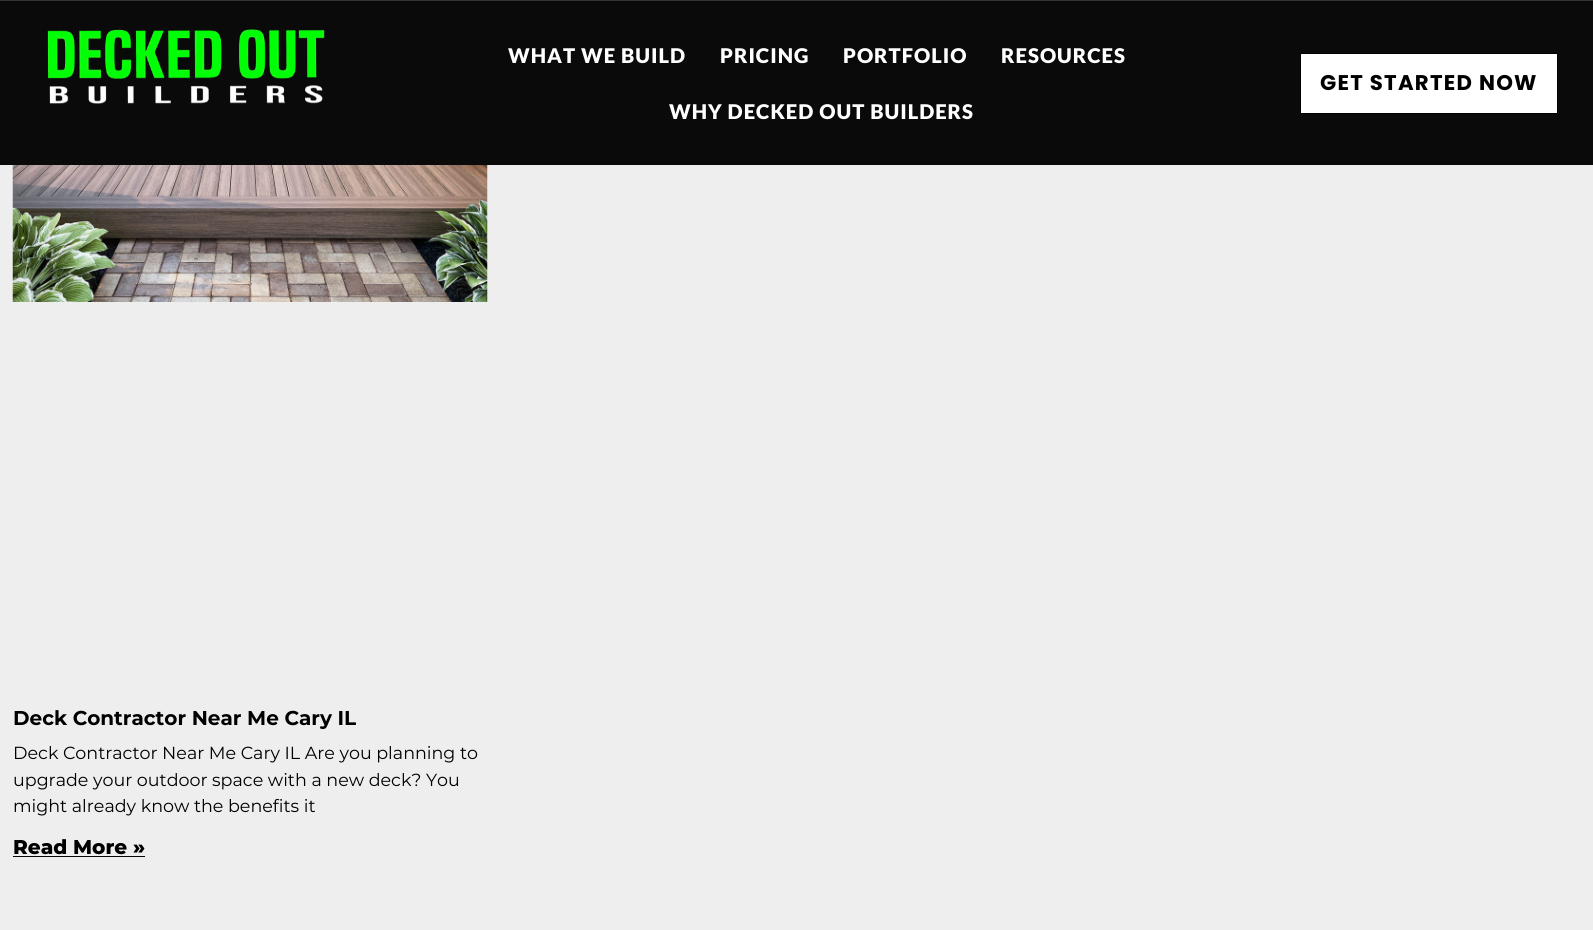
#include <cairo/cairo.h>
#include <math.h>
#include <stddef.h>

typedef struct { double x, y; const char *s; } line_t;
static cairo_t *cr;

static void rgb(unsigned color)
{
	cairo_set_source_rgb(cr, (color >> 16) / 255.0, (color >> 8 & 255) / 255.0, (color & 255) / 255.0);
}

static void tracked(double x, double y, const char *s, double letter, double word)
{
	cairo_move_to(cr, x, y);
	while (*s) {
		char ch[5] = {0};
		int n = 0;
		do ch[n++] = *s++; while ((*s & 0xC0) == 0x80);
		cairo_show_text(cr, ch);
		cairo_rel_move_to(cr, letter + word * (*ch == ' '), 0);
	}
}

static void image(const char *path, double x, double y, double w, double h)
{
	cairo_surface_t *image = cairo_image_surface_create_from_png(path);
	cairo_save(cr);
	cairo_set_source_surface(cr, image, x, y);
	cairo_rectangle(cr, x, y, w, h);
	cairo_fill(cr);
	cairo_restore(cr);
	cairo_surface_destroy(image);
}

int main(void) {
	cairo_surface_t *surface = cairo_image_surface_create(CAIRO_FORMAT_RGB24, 1593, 930);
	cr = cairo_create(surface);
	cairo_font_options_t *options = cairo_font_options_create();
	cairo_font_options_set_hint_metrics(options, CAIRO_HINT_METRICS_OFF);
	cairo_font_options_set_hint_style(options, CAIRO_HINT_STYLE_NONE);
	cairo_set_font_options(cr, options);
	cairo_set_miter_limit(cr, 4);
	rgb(0xeeeeee);
	cairo_paint(cr);
	rgb(0x0a0a0a);
	cairo_rectangle(cr, 0, 1, 1593, 164);
	cairo_fill(cr);
	rgb(0x333333);
	cairo_rectangle(cr, 0, 0, 1593, 1);
	cairo_fill(cr);
	image("img/1.png", 47, 29, 278, 75);
	rgb(0xffffff);
	cairo_rectangle(cr, 1300.5, 53.5, 257, 60);
	cairo_fill_preserve(cr);
	rgb(0x000000);
	cairo_set_line_width(cr, 1);
	cairo_stroke(cr);
	image("img/2.png", 12, 165, 476, 137);
	rgb(0x040504);
	cairo_rectangle(cr, 13, 856, 132, 1);
	cairo_fill(cr);
	cairo_select_font_face(cr, "Lato Black", CAIRO_FONT_SLANT_NORMAL, CAIRO_FONT_WEIGHT_NORMAL);
	cairo_set_font_size(cr, 20.25);
	rgb(0xffffff);
	{
		static const line_t items[] = {
			{508, 63, "WHAT WE BUILD"},
			{720, 63, "PRICING"},
			{843, 63, "PORTFOLIO"},
			{1001, 63, "RESOURCES"},
			{669, 119, "WHY DECKED OUT BUILDERS"},
		};
		for (size_t i = 0; i < sizeof items / sizeof *items; i++) {
			tracked(items[i].x, items[i].y, items[i].s, 1, 0);
		}
	}
	cairo_select_font_face(cr, "Poppins", CAIRO_FONT_SLANT_NORMAL, CAIRO_FONT_WEIGHT_BOLD);
	cairo_set_font_size(cr, 21.25);
	rgb(0x000000);
	tracked(1320, 90, "GET STARTED NOW", 1.25, 0);
	cairo_select_font_face(cr, "Montserrat", CAIRO_FONT_SLANT_NORMAL, CAIRO_FONT_WEIGHT_BOLD);
	cairo_set_font_size(cr, 20);
	cairo_move_to(cr, 13, 725);
	cairo_show_text(cr, "Deck Contractor Near Me Cary IL");
	cairo_select_font_face(cr, "Montserrat", CAIRO_FONT_SLANT_NORMAL, CAIRO_FONT_WEIGHT_NORMAL);
	cairo_set_font_size(cr, 17.5);
	{
		static const line_t items[] = {
			{13, 759, "Deck Contractor Near Me Cary IL Are you planning to"},
			{13, 786, "upgrade your outdoor space with a new deck? You"},
			{13, 812, "might already know the benefits it"},
		};
		for (size_t i = 0; i < sizeof items / sizeof *items; i++) {
			cairo_move_to(cr, items[i].x, items[i].y);
			cairo_show_text(cr, items[i].s);
		}
	}
	cairo_select_font_face(cr, "Montserrat ExtraBold", CAIRO_FONT_SLANT_NORMAL, CAIRO_FONT_WEIGHT_NORMAL);
	cairo_set_font_size(cr, 20);
	cairo_move_to(cr, 13, 854);
	cairo_show_text(cr, "Read More »");
	cairo_surface_write_to_png(surface, "page.png");
	cairo_font_options_destroy(options);
	cairo_destroy(cr);
	cairo_surface_destroy(surface);
	return 0;
}
